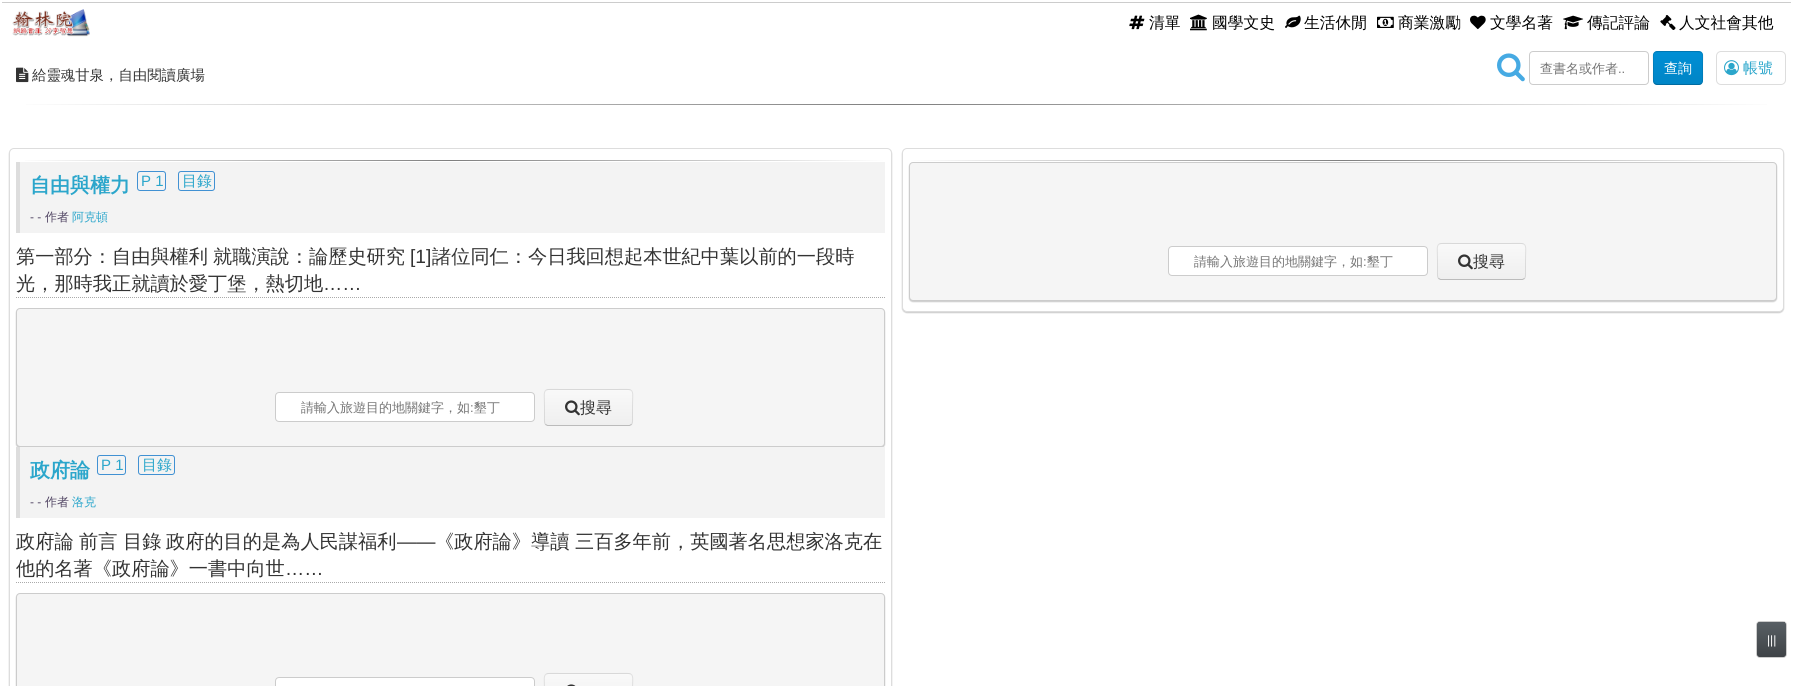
#include <cairo/cairo.h>
#include <math.h>
#include <stddef.h>

typedef struct { double x, y; const char *s; } line_t;
static cairo_t *cr;

static void rgb(unsigned color)
{
	cairo_set_source_rgb(cr, (color >> 16) / 255.0, (color >> 8 & 255) / 255.0, (color & 255) / 255.0);
}

static void rrect(double x, double y, double w, double h, double r)
{
	cairo_new_sub_path(cr);
	cairo_arc(cr, x + w - r, y + h - r, r, 0, M_PI / 2);
	cairo_arc(cr, x + r, y + h - r, r, M_PI / 2, M_PI);
	cairo_arc(cr, x + r, y + r, r, M_PI, 1.5 * M_PI);
	cairo_arc(cr, x + w - r, y + r, r, 1.5 * M_PI, 2 * M_PI);
	cairo_close_path(cr);
}

static void soft_shadow(double x, double y, double w, double h, double r, double blur, double alpha)
{
	cairo_push_group_with_content(cr, CAIRO_CONTENT_ALPHA);
	cairo_set_operator(cr, CAIRO_OPERATOR_SOURCE);
	for (int i = 15; i >= -15 && fmin(w, h) + blur * i / 3 > 0; i -= 2) {
		double e = blur * i / 6;
		cairo_set_source_rgba(cr, 0, 0, 0, alpha * erfc((i - 1) / 8.5) / 2);
		rrect(x - e, y - e, w + 2 * e, h + 2 * e, fmax(0, fmin(r + e + blur * .6, fmin(w, h) / 2 + e)));
		cairo_fill(cr);
	}
	cairo_pattern_t *soft = cairo_pop_group(cr);
	cairo_mask(cr, soft);
	cairo_pattern_destroy(soft);
}

static void image(const char *path, double x, double y, double w, double h)
{
	cairo_surface_t *image = cairo_image_surface_create_from_png(path);
	cairo_save(cr);
	cairo_set_source_surface(cr, image, x, y);
	cairo_rectangle(cr, x, y, w, h);
	cairo_fill(cr);
	cairo_restore(cr);
	cairo_surface_destroy(image);
}

int main(void) {
	cairo_surface_t *surface = cairo_image_surface_create(CAIRO_FORMAT_RGB24, 1793, 686);
	cr = cairo_create(surface);
	cairo_font_options_t *options = cairo_font_options_create();
	cairo_font_options_set_hint_metrics(options, CAIRO_HINT_METRICS_OFF);
	cairo_font_options_set_hint_style(options, CAIRO_HINT_STYLE_NONE);
	cairo_set_font_options(cr, options);
	cairo_set_miter_limit(cr, 4);
	cairo_pattern_t *gradient;
	rgb(0xffffff);
	cairo_paint(cr);
	rgb(0xcccccc);
	cairo_rectangle(cr, 2, 2, 1789, 1);
	cairo_fill(cr);
	image("img/1.png", 12, 9, 78, 28);
	image("img/2.png", 1129, 15, 16, 15);
	image("img/3.png", 1190, 14, 17, 17);
	image("img/4.png", 1285, 15, 16, 13);
	image("img/5.png", 1377, 16, 17, 12);
	image("img/6.png", 1470, 15, 16, 15);
	image("img/7.png", 1563, 15, 21, 15);
	image("img/8.png", 1660, 15, 16, 15);
	image("img/9.png", 16, 67, 13, 16);
	image("img/10.png", 1497, 53, 28, 29);
	rrect(1529.5, 51.5, 119, 33, 3.5);
	cairo_set_line_width(cr, 1);
	cairo_stroke(cr);
	cairo_save(cr);
	rrect(1653, 51, 50, 34, 4);
	cairo_clip(cr);
	gradient = cairo_pattern_create_linear(1654, 20, 1654, 52);
	cairo_pattern_add_color_stop_rgba(gradient, 0, 0, 0.561, 0.835, 1);
	cairo_pattern_add_color_stop_rgba(gradient, 1, 0, 0.522, 0.776, 1);
	cairo_set_source(cr, gradient);
	cairo_pattern_destroy(gradient);
	cairo_rectangle(cr, 1653, 51, 50, 1);
	cairo_fill(cr);
	gradient = cairo_pattern_create_linear(1654, 52, 1654, 84);
	cairo_pattern_add_color_stop_rgba(gradient, 0, 0, 0.561, 0.835, 1);
	cairo_pattern_add_color_stop_rgba(gradient, 1, 0, 0.522, 0.776, 1);
	cairo_set_source(cr, gradient);
	cairo_pattern_destroy(gradient);
	cairo_rectangle(cr, 1653, 52, 50, 32);
	cairo_fill(cr);
	gradient = cairo_pattern_create_linear(1654, 84, 1654, 116);
	cairo_pattern_add_color_stop_rgba(gradient, 0, 0, 0.561, 0.835, 1);
	cairo_pattern_add_color_stop_rgba(gradient, 1, 0, 0.522, 0.776, 1);
	cairo_set_source(cr, gradient);
	cairo_pattern_destroy(gradient);
	cairo_rectangle(cr, 1653, 84, 50, 1);
	cairo_fill(cr);
	cairo_restore(cr);
	cairo_new_path(cr);
	cairo_move_to(cr, 1701.5, 83.5);
	cairo_curve_to(cr, 1701, 84, 1700, 84.5, 1699, 84.5);
	cairo_line_to(cr, 1657, 84.5);
	cairo_curve_to(cr, 1656, 84.5, 1655, 84, 1654.5, 83.5);
	cairo_set_source_rgba(cr, 0, 0, 0, 0.25);
	cairo_stroke(cr);
	cairo_new_path(cr);
	cairo_move_to(cr, 1654.5, 83.5);
	cairo_curve_to(cr, 1652.5, 81, 1653.5, 71, 1653.5, 68);
	cairo_curve_to(cr, 1653.5, 52.5, 1650, 51.5, 1664, 51.5);
	cairo_line_to(cr, 1692, 51.5);
	cairo_curve_to(cr, 1706, 51.5, 1702.5, 52.5, 1702.5, 68);
	cairo_curve_to(cr, 1702.5, 71, 1703.5, 81, 1701.5, 83.5);
	cairo_set_source_rgba(cr, 0, 0, 0, 0.1);
	cairo_stroke(cr);
	rrect(1716.5, 51.5, 69, 33, 4.5);
	rgb(0xdddddd);
	cairo_stroke(cr);
	image("img/11.png", 1724, 60, 15, 16);
	gradient = cairo_pattern_create_linear(9, 105, 1784, 104);
	cairo_pattern_add_color_stop_rgba(gradient, 0, 1, 1, 1, 1);
	cairo_pattern_add_color_stop_rgba(gradient, 0.5, 0.498, 0.498, 0.498, 1);
	cairo_pattern_add_color_stop_rgba(gradient, 1, 1, 1, 1, 1);
	cairo_set_source(cr, gradient);
	cairo_pattern_destroy(gradient);
	cairo_rectangle(cr, 26, 104, 1741, 1);
	cairo_fill(cr);
	rgb(0x000000);
	soft_shadow(9, 149, 883, 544, 5, 0.5, 0.2);
	rgb(0xffffff);
	rrect(9.5, 148.5, 882, 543, 4.5);
	cairo_fill_preserve(cr);
	rgb(0xdddddd);
	cairo_stroke(cr);
	gradient = cairo_pattern_create_linear(16, 161, 885, 160);
	cairo_pattern_add_color_stop_rgba(gradient, 0, 1, 1, 1, 1);
	cairo_pattern_add_color_stop_rgba(gradient, 0.5, 0.498, 0.498, 0.498, 1);
	cairo_pattern_add_color_stop_rgba(gradient, 1, 1, 1, 1, 1);
	cairo_set_source(cr, gradient);
	cairo_pattern_destroy(gradient);
	cairo_rectangle(cr, 25, 160, 860, 1);
	cairo_fill(cr);
	rgb(0xf3f3f3);
	cairo_rectangle(cr, 20, 162, 865, 71);
	cairo_fill(cr);
	rgb(0xdddddd);
	cairo_rectangle(cr, 16, 162, 4, 71);
	cairo_fill(cr);
	rrect(137.5, 171.5, 28, 19, 2.5);
	rgb(0x4191d3);
	cairo_stroke(cr);
	rrect(178.5, 171.5, 36, 19, 2.5);
	cairo_stroke(cr);
	cairo_new_path(cr);
	cairo_move_to(cr, 16, 297.5);
	cairo_line_to(cr, 885, 297.5);
	rgb(0xaaaaaa);
	cairo_set_dash(cr, (double[]){1, 1}, 2, 0);
	cairo_stroke(cr);
	rgb(0x000000);
	soft_shadow(16, 309, 869, 139, 4, 0.5, 0.2);
	rgb(0xf5f5f5);
	rrect(16.5, 308.5, 868, 138, 3.5);
	cairo_fill_preserve(cr);
	rgb(0xcccccc);
	cairo_set_dash(cr, NULL, 0, 0);
	cairo_stroke(cr);
	rgb(0xffffff);
	rrect(275.5, 392.5, 259, 29, 3.5);
	cairo_fill_preserve(cr);
	rgb(0xcccccc);
	cairo_stroke(cr);
	cairo_save(cr);
	rrect(544, 389, 89, 37, 4);
	cairo_clip(cr);
	gradient = cairo_pattern_create_linear(589, 355, 589, 390);
	cairo_pattern_add_color_stop_rgba(gradient, 0, 0.976, 0.976, 0.976, 1);
	cairo_pattern_add_color_stop_rgba(gradient, 1, 0.937, 0.937, 0.937, 1);
	cairo_set_source(cr, gradient);
	cairo_pattern_destroy(gradient);
	cairo_rectangle(cr, 544, 389, 89, 1);
	cairo_fill(cr);
	gradient = cairo_pattern_create_linear(589, 390, 589, 425);
	cairo_pattern_add_color_stop_rgba(gradient, 0, 0.976, 0.976, 0.976, 1);
	cairo_pattern_add_color_stop_rgba(gradient, 1, 0.937, 0.937, 0.937, 1);
	cairo_set_source(cr, gradient);
	cairo_pattern_destroy(gradient);
	cairo_rectangle(cr, 544, 390, 89, 35);
	cairo_fill(cr);
	gradient = cairo_pattern_create_linear(589, 425, 589, 460);
	cairo_pattern_add_color_stop_rgba(gradient, 0, 0.976, 0.976, 0.976, 1);
	cairo_pattern_add_color_stop_rgba(gradient, 1, 0.937, 0.937, 0.937, 1);
	cairo_set_source(cr, gradient);
	cairo_pattern_destroy(gradient);
	cairo_rectangle(cr, 544, 425, 89, 1);
	cairo_fill(cr);
	cairo_restore(cr);
	cairo_new_path(cr);
	cairo_move_to(cr, 631.5, 424.5);
	cairo_line_to(cr, 629.5, 425.5);
	cairo_line_to(cr, 547.5, 425.5);
	cairo_line_to(cr, 545.5, 424.5);
	cairo_set_source_rgba(cr, 0, 0, 0, 0.25);
	cairo_stroke(cr);
	cairo_new_path(cr);
	cairo_move_to(cr, 545.5, 424.5);
	cairo_curve_to(cr, 544, 422.5, 544.5, 419, 544.5, 417);
	cairo_line_to(cr, 544.5, 407.5);
	cairo_curve_to(cr, 544.5, 387, 541, 389.5, 561.5, 389.5);
	cairo_line_to(cr, 615.5, 389.5);
	cairo_curve_to(cr, 636, 389.5, 632.5, 387, 632.5, 407.5);
	cairo_line_to(cr, 632.5, 417);
	cairo_curve_to(cr, 632.5, 419, 633, 422.5, 631.5, 424.5);
	cairo_set_source_rgba(cr, 0, 0, 0, 0.1);
	cairo_stroke(cr);
	image("img/12.png", 565, 400, 15, 16);
	rgb(0xf3f3f3);
	cairo_rectangle(cr, 20, 447, 865, 71);
	cairo_fill(cr);
	rgb(0xdddddd);
	cairo_rectangle(cr, 16, 447, 4, 71);
	cairo_fill(cr);
	rrect(97.5, 455.5, 28, 19, 2.5);
	rgb(0x4191d3);
	cairo_stroke(cr);
	rrect(138.5, 455.5, 36, 19, 2.5);
	cairo_stroke(cr);
	cairo_new_path(cr);
	cairo_move_to(cr, 16, 582.5);
	cairo_line_to(cr, 885, 582.5);
	rgb(0xaaaaaa);
	cairo_set_dash(cr, (double[]){1, 1}, 2, 0);
	cairo_stroke(cr);
	rgb(0x000000);
	soft_shadow(16, 594, 869, 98, 4, 0.5, 0.2);
	rgb(0xf5f5f5);
	rrect(16.5, 593.5, 868, 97, 3.5);
	cairo_fill_preserve(cr);
	rgb(0xcccccc);
	cairo_set_dash(cr, NULL, 0, 0);
	cairo_stroke(cr);
	rgb(0xffffff);
	rrect(275.5, 677.5, 259, 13, 3.5);
	cairo_fill_preserve(cr);
	rgb(0xcccccc);
	cairo_stroke(cr);
	cairo_save(cr);
	rrect(544, 673, 89, 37, 4);
	cairo_clip(cr);
	gradient = cairo_pattern_create_linear(589, 639, 589, 674);
	cairo_pattern_add_color_stop_rgba(gradient, 0, 0.976, 0.976, 0.976, 1);
	cairo_pattern_add_color_stop_rgba(gradient, 1, 0.937, 0.937, 0.937, 1);
	cairo_set_source(cr, gradient);
	cairo_pattern_destroy(gradient);
	cairo_rectangle(cr, 544, 673, 89, 1);
	cairo_fill(cr);
	gradient = cairo_pattern_create_linear(589, 674, 589, 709);
	cairo_pattern_add_color_stop_rgba(gradient, 0, 0.976, 0.976, 0.976, 1);
	cairo_pattern_add_color_stop_rgba(gradient, 1, 0.937, 0.937, 0.937, 1);
	cairo_set_source(cr, gradient);
	cairo_pattern_destroy(gradient);
	cairo_rectangle(cr, 544, 674, 89, 12);
	cairo_fill(cr);
	cairo_restore(cr);
	cairo_new_path(cr);
	cairo_move_to(cr, 545.5, 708.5);
	cairo_curve_to(cr, 544, 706.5, 544.5, 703, 544.5, 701);
	cairo_line_to(cr, 544.5, 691.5);
	cairo_curve_to(cr, 544.5, 671, 541, 673.5, 561.5, 673.5);
	cairo_line_to(cr, 615.5, 673.5);
	cairo_curve_to(cr, 636, 673.5, 632.5, 671, 632.5, 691.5);
	cairo_line_to(cr, 632.5, 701);
	cairo_curve_to(cr, 632.5, 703, 633, 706.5, 631.5, 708.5);
	cairo_set_source_rgba(cr, 0, 0, 0, 0.1);
	cairo_stroke(cr);
	image("img/13.png", 567, 684, 9, 2);
	rgb(0x000000);
	soft_shadow(902, 149, 882, 164, 5, 0.5, 0.2);
	rgb(0xffffff);
	rrect(902.5, 148.5, 881, 163, 4.5);
	cairo_fill_preserve(cr);
	rgb(0xdddddd);
	cairo_stroke(cr);
	rgb(0x000000);
	soft_shadow(909, 163, 868, 139, 4, 0.5, 0.2);
	gradient = cairo_pattern_create_linear(909, 161, 1777, 160);
	cairo_pattern_add_color_stop_rgba(gradient, 0, 1, 1, 1, 1);
	cairo_pattern_add_color_stop_rgba(gradient, 0.5, 0.498, 0.498, 0.498, 1);
	cairo_pattern_add_color_stop_rgba(gradient, 1, 1, 1, 1, 1);
	cairo_set_source(cr, gradient);
	cairo_pattern_destroy(gradient);
	cairo_rectangle(cr, 909, 160, 868, 1);
	cairo_fill(cr);
	rgb(0xf5f5f5);
	rrect(909.5, 162.5, 867, 138, 3.5);
	cairo_fill_preserve(cr);
	rgb(0xcccccc);
	cairo_stroke(cr);
	rgb(0xffffff);
	rrect(1168.5, 246.5, 259, 29, 3.5);
	cairo_fill_preserve(cr);
	rgb(0xcccccc);
	cairo_stroke(cr);
	cairo_save(cr);
	rrect(1437, 243, 89, 37, 4);
	cairo_clip(cr);
	gradient = cairo_pattern_create_linear(1482, 209, 1482, 244);
	cairo_pattern_add_color_stop_rgba(gradient, 0, 0.976, 0.976, 0.976, 1);
	cairo_pattern_add_color_stop_rgba(gradient, 1, 0.937, 0.937, 0.937, 1);
	cairo_set_source(cr, gradient);
	cairo_pattern_destroy(gradient);
	cairo_rectangle(cr, 1437, 243, 89, 1);
	cairo_fill(cr);
	gradient = cairo_pattern_create_linear(1482, 244, 1482, 279);
	cairo_pattern_add_color_stop_rgba(gradient, 0, 0.976, 0.976, 0.976, 1);
	cairo_pattern_add_color_stop_rgba(gradient, 1, 0.937, 0.937, 0.937, 1);
	cairo_set_source(cr, gradient);
	cairo_pattern_destroy(gradient);
	cairo_rectangle(cr, 1437, 244, 89, 35);
	cairo_fill(cr);
	gradient = cairo_pattern_create_linear(1482, 279, 1482, 314);
	cairo_pattern_add_color_stop_rgba(gradient, 0, 0.976, 0.976, 0.976, 1);
	cairo_pattern_add_color_stop_rgba(gradient, 1, 0.937, 0.937, 0.937, 1);
	cairo_set_source(cr, gradient);
	cairo_pattern_destroy(gradient);
	cairo_rectangle(cr, 1437, 279, 89, 1);
	cairo_fill(cr);
	cairo_restore(cr);
	cairo_new_path(cr);
	cairo_move_to(cr, 1524.5, 278.5);
	cairo_line_to(cr, 1522.5, 279.5);
	cairo_line_to(cr, 1440.5, 279.5);
	cairo_line_to(cr, 1438.5, 278.5);
	cairo_set_source_rgba(cr, 0, 0, 0, 0.25);
	cairo_stroke(cr);
	cairo_new_path(cr);
	cairo_move_to(cr, 1438.5, 278.5);
	cairo_curve_to(cr, 1437, 276.5, 1437.5, 273, 1437.5, 271);
	cairo_line_to(cr, 1437.5, 261.5);
	cairo_curve_to(cr, 1437.5, 241, 1434, 243.5, 1454.5, 243.5);
	cairo_line_to(cr, 1508.5, 243.5);
	cairo_curve_to(cr, 1529, 243.5, 1525.5, 241, 1525.5, 261.5);
	cairo_line_to(cr, 1525.5, 271);
	cairo_curve_to(cr, 1525.5, 273, 1526, 276.5, 1524.5, 278.5);
	cairo_set_source_rgba(cr, 0, 0, 0, 0.1);
	cairo_stroke(cr);
	image("img/12.png", 1458, 254, 15, 16);
	rrect(1756.5, 621.5, 30, 36, 3.5);
	rgb(0xcccccc);
	cairo_stroke(cr);
	rgb(0x4e5458);
	rrect(1757, 622, 29, 35, 3);
	cairo_fill(cr);
	cairo_save(cr);
	rrect(1757, 622, 29, 35, 3);
	cairo_clip(cr);
	gradient = cairo_pattern_create_linear(1772, 589, 1772, 623);
	cairo_pattern_add_color_stop_rgba(gradient, 0, 0.341, 0.369, 0.388, 1);
	cairo_pattern_add_color_stop_rgba(gradient, 1, 0.247, 0.263, 0.278, 1);
	cairo_set_source(cr, gradient);
	cairo_pattern_destroy(gradient);
	cairo_rectangle(cr, 1757, 622, 29, 1);
	cairo_fill(cr);
	gradient = cairo_pattern_create_linear(1772, 623, 1772, 657);
	cairo_pattern_add_color_stop_rgba(gradient, 0, 0.341, 0.369, 0.388, 1);
	cairo_pattern_add_color_stop_rgba(gradient, 1, 0.247, 0.263, 0.278, 1);
	cairo_set_source(cr, gradient);
	cairo_pattern_destroy(gradient);
	cairo_new_path(cr);
	cairo_move_to(cr, 1757, 623);
	cairo_line_to(cr, 1786, 623);
	cairo_line_to(cr, 1786, 654);
	cairo_curve_to(cr, 1786, 655.5, 1784.5, 657, 1783, 657);
	cairo_line_to(cr, 1760, 657);
	cairo_curve_to(cr, 1758.5, 657, 1757, 655.5, 1757, 654);
	cairo_close_path(cr);
	cairo_fill(cr);
	cairo_restore(cr);
	rgb(0x575e63);
	cairo_rectangle(cr, 1759, 622, 26, 1);
	cairo_fill(cr);
	cairo_select_font_face(cr, "WenQuanYi Zen Hei Medium", CAIRO_FONT_SLANT_NORMAL, CAIRO_FONT_WEIGHT_NORMAL);
	cairo_set_font_size(cr, 15.75);
	rgb(0x000000);
	{
		static const line_t items[] = {
			{1149, 28, "清單"},
			{1212, 28, "國學文史"},
			{1304, 28, "生活休閒"},
			{1398, 28, "商業激勵"},
			{1490, 28, "文學名著"},
			{1587, 28, "傳記評論"},
			{1679, 28, "人文社會其他"},
		};
		for (size_t i = 0; i < sizeof items / sizeof *items; i++) {
			cairo_move_to(cr, items[i].x, items[i].y);
			cairo_show_text(cr, items[i].s);
		}
	}
	cairo_set_font_size(cr, 14.4);
	rgb(0x333333);
	cairo_move_to(cr, 32, 80);
	cairo_show_text(cr, "給靈魂甘泉，自由閱讀廣場");
	cairo_set_font_size(cr, 13);
	rgb(0x757575);
	cairo_move_to(cr, 1540, 73);
	cairo_show_text(cr, "查書名或作者");
	cairo_select_font_face(cr, "Liberation Sans", CAIRO_FONT_SLANT_NORMAL, CAIRO_FONT_WEIGHT_NORMAL);
	cairo_move_to(cr, 1618, 73);
	cairo_show_text(cr, "..");
	cairo_select_font_face(cr, "WenQuanYi Zen Hei Medium", CAIRO_FONT_SLANT_NORMAL, CAIRO_FONT_WEIGHT_NORMAL);
	cairo_set_font_size(cr, 14);
	rgb(0xffffff);
	cairo_move_to(cr, 1664, 73);
	cairo_show_text(cr, "查詢");
	cairo_set_font_size(cr, 15);
	rgb(0x2ba6cb);
	cairo_move_to(cr, 1743, 73);
	cairo_show_text(cr, "帳號");
	cairo_select_font_face(cr, "WenQuanYi Zen Hei", CAIRO_FONT_SLANT_NORMAL, CAIRO_FONT_WEIGHT_BOLD);
	cairo_set_font_size(cr, 20);
	cairo_move_to(cr, 30, 192);
	cairo_show_text(cr, "自由與權力");
	cairo_select_font_face(cr, "Liberation Sans", CAIRO_FONT_SLANT_NORMAL, CAIRO_FONT_WEIGHT_NORMAL);
	cairo_set_font_size(cr, 15);
	cairo_move_to(cr, 141, 186);
	cairo_show_text(cr, "P 1");
	cairo_select_font_face(cr, "WenQuanYi Zen Hei Medium", CAIRO_FONT_SLANT_NORMAL, CAIRO_FONT_WEIGHT_NORMAL);
	cairo_move_to(cr, 182, 186);
	cairo_show_text(cr, "目錄");
	cairo_select_font_face(cr, "Liberation Sans", CAIRO_FONT_SLANT_NORMAL, CAIRO_FONT_WEIGHT_NORMAL);
	cairo_set_font_size(cr, 12);
	rgb(0x524664);
	cairo_move_to(cr, 30, 221);
	cairo_show_text(cr, "- -");
	cairo_select_font_face(cr, "WenQuanYi Zen Hei Medium", CAIRO_FONT_SLANT_NORMAL, CAIRO_FONT_WEIGHT_NORMAL);
	cairo_move_to(cr, 45, 221);
	cairo_show_text(cr, "作者");
	rgb(0x2ba6cb);
	cairo_move_to(cr, 72, 221);
	cairo_show_text(cr, "阿克頓");
	cairo_set_font_size(cr, 19.2);
	rgb(0x333333);
	cairo_move_to(cr, 16, 263);
	cairo_show_text(cr, "第一部分：自由與權利");
	cairo_move_to(cr, 213, 263);
	cairo_show_text(cr, "就職演說：論歷史研究");
	cairo_select_font_face(cr, "Liberation Sans", CAIRO_FONT_SLANT_NORMAL, CAIRO_FONT_WEIGHT_NORMAL);
	cairo_move_to(cr, 410, 263);
	cairo_show_text(cr, "[1]");
	cairo_select_font_face(cr, "WenQuanYi Zen Hei Medium", CAIRO_FONT_SLANT_NORMAL, CAIRO_FONT_WEIGHT_NORMAL);
	cairo_move_to(cr, 432, 263);
	cairo_show_text(cr, "諸位同仁：今日我回想起本世紀中葉以前的一段時");
	cairo_move_to(cr, 16, 290);
	cairo_show_text(cr, "光，那時我正就讀於愛丁堡，熱切地");
	cairo_select_font_face(cr, "Liberation Sans", CAIRO_FONT_SLANT_NORMAL, CAIRO_FONT_WEIGHT_NORMAL);
	cairo_move_to(cr, 323, 290);
	cairo_show_text(cr, "……");
	cairo_select_font_face(cr, "WenQuanYi Zen Hei Medium", CAIRO_FONT_SLANT_NORMAL, CAIRO_FONT_WEIGHT_NORMAL);
	cairo_set_font_size(cr, 13);
	rgb(0x757575);
	cairo_move_to(cr, 301, 412);
	cairo_show_text(cr, "請輸入旅遊目的地關鍵字，如 墾丁");
	cairo_select_font_face(cr, "Liberation Sans", CAIRO_FONT_SLANT_NORMAL, CAIRO_FONT_WEIGHT_NORMAL);
	cairo_move_to(cr, 470, 412);
	cairo_show_text(cr, ":");
	cairo_select_font_face(cr, "WenQuanYi Zen Hei Medium", CAIRO_FONT_SLANT_NORMAL, CAIRO_FONT_WEIGHT_NORMAL);
	cairo_set_font_size(cr, 16);
	rgb(0x333333);
	cairo_move_to(cr, 580, 413);
	cairo_show_text(cr, "搜尋");
	cairo_select_font_face(cr, "WenQuanYi Zen Hei", CAIRO_FONT_SLANT_NORMAL, CAIRO_FONT_WEIGHT_BOLD);
	cairo_set_font_size(cr, 20);
	rgb(0x2ba6cb);
	cairo_move_to(cr, 30, 477);
	cairo_show_text(cr, "政府論");
	cairo_select_font_face(cr, "Liberation Sans", CAIRO_FONT_SLANT_NORMAL, CAIRO_FONT_WEIGHT_NORMAL);
	cairo_set_font_size(cr, 15);
	cairo_move_to(cr, 101, 470);
	cairo_show_text(cr, "P 1");
	cairo_select_font_face(cr, "WenQuanYi Zen Hei Medium", CAIRO_FONT_SLANT_NORMAL, CAIRO_FONT_WEIGHT_NORMAL);
	cairo_move_to(cr, 142, 470);
	cairo_show_text(cr, "目錄");
	cairo_select_font_face(cr, "Liberation Sans", CAIRO_FONT_SLANT_NORMAL, CAIRO_FONT_WEIGHT_NORMAL);
	cairo_set_font_size(cr, 12);
	rgb(0x524664);
	cairo_move_to(cr, 30, 506);
	cairo_show_text(cr, "- -");
	cairo_select_font_face(cr, "WenQuanYi Zen Hei Medium", CAIRO_FONT_SLANT_NORMAL, CAIRO_FONT_WEIGHT_NORMAL);
	cairo_move_to(cr, 45, 506);
	cairo_show_text(cr, "作者");
	rgb(0x2ba6cb);
	cairo_move_to(cr, 72, 506);
	cairo_show_text(cr, "洛克");
	cairo_set_font_size(cr, 19.2);
	rgb(0x333333);
	{
		static const line_t items[] = {
			{16, 548, "政府論"},
			{79, 548, "前言 目錄"},
			{166, 548, "政府的目的是為人民謀福利"},
		};
		for (size_t i = 0; i < sizeof items / sizeof *items; i++) {
			cairo_move_to(cr, items[i].x, items[i].y);
			cairo_show_text(cr, items[i].s);
		}
	}
	cairo_select_font_face(cr, "Liberation Sans", CAIRO_FONT_SLANT_NORMAL, CAIRO_FONT_WEIGHT_NORMAL);
	cairo_move_to(cr, 397, 548);
	cairo_show_text(cr, "——");
	cairo_select_font_face(cr, "WenQuanYi Zen Hei Medium", CAIRO_FONT_SLANT_NORMAL, CAIRO_FONT_WEIGHT_NORMAL);
	{
		static const line_t items[] = {
			{435, 548, "《政府論》導讀"},
			{575, 548, "三百多年前，英國著名思想家洛克在"},
			{16, 575, "他的名著《政府論》一書中向世"},
		};
		for (size_t i = 0; i < sizeof items / sizeof *items; i++) {
			cairo_move_to(cr, items[i].x, items[i].y);
			cairo_show_text(cr, items[i].s);
		}
	}
	cairo_select_font_face(cr, "Liberation Sans", CAIRO_FONT_SLANT_NORMAL, CAIRO_FONT_WEIGHT_NORMAL);
	cairo_move_to(cr, 285, 575);
	cairo_show_text(cr, "……");
	cairo_select_font_face(cr, "WenQuanYi Zen Hei Medium", CAIRO_FONT_SLANT_NORMAL, CAIRO_FONT_WEIGHT_NORMAL);
	cairo_set_font_size(cr, 13);
	rgb(0x757575);
	cairo_move_to(cr, 1194, 266);
	cairo_show_text(cr, "請輸入旅遊目的地關鍵字，如 墾丁");
	cairo_select_font_face(cr, "Liberation Sans", CAIRO_FONT_SLANT_NORMAL, CAIRO_FONT_WEIGHT_NORMAL);
	cairo_move_to(cr, 1363, 266);
	cairo_show_text(cr, ":");
	cairo_select_font_face(cr, "WenQuanYi Zen Hei Medium", CAIRO_FONT_SLANT_NORMAL, CAIRO_FONT_WEIGHT_NORMAL);
	cairo_set_font_size(cr, 16);
	rgb(0x333333);
	cairo_move_to(cr, 1473, 267);
	cairo_show_text(cr, "搜尋");
	cairo_select_font_face(cr, "Liberation Sans", CAIRO_FONT_SLANT_NORMAL, CAIRO_FONT_WEIGHT_NORMAL);
	cairo_set_font_size(cr, 12);
	rgb(0xffffff);
	cairo_move_to(cr, 1767, 644);
	cairo_show_text(cr, "|||");
	cairo_surface_write_to_png(surface, "page.png");
	cairo_font_options_destroy(options);
	cairo_destroy(cr);
	cairo_surface_destroy(surface);
	return 0;
}
